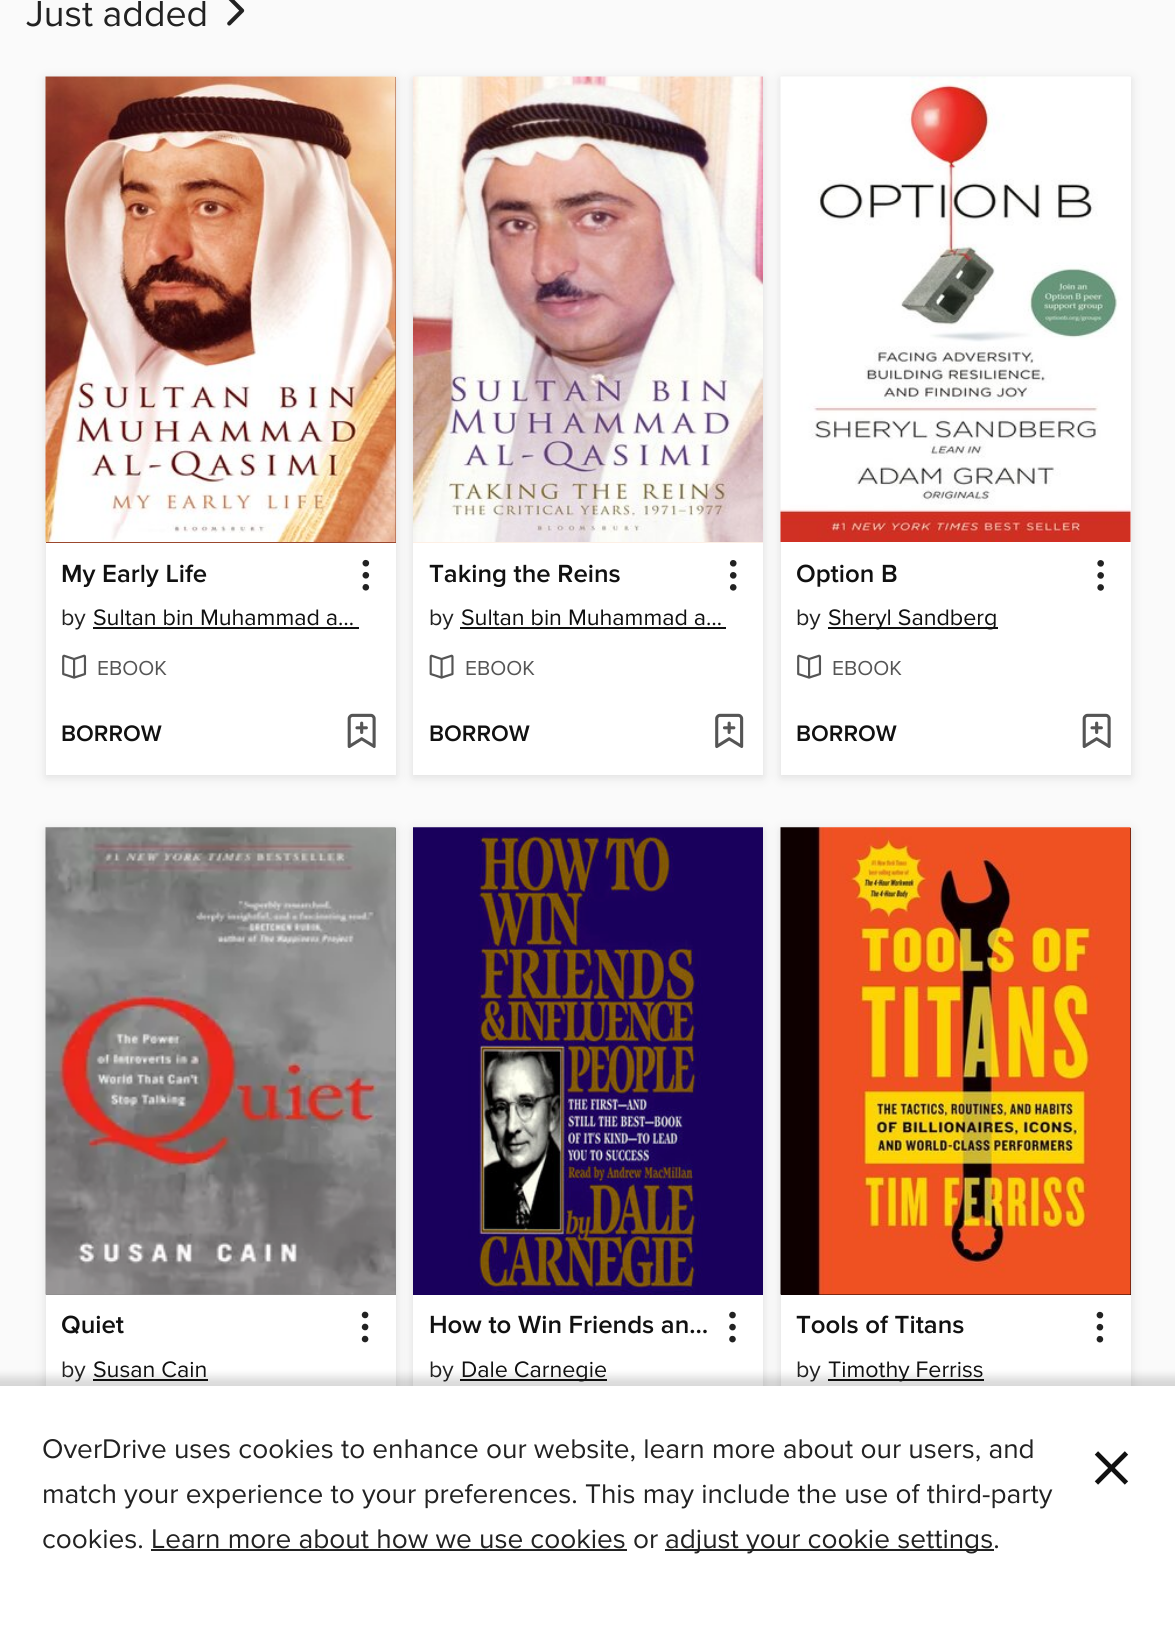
#include <cairo/cairo.h>
#include <math.h>
#include <stddef.h>

typedef struct { double x, y; const char *s; } line_t;
typedef struct { double x, y, w, h; unsigned color; } box_t;
static cairo_t *cr;

static void rgb(unsigned color)
{
	cairo_set_source_rgb(cr, (color >> 16) / 255.0, (color >> 8 & 255) / 255.0, (color & 255) / 255.0);
}

static void rrect(double x, double y, double w, double h, double r)
{
	cairo_new_sub_path(cr);
	cairo_arc(cr, x + w - r, y + h - r, r, 0, M_PI / 2);
	cairo_arc(cr, x + r, y + h - r, r, M_PI / 2, M_PI);
	cairo_arc(cr, x + r, y + r, r, M_PI, 1.5 * M_PI);
	cairo_arc(cr, x + w - r, y + r, r, 1.5 * M_PI, 2 * M_PI);
	cairo_close_path(cr);
}

static void soft_shadow(double x, double y, double w, double h, double r, double blur, double alpha)
{
	cairo_push_group_with_content(cr, CAIRO_CONTENT_ALPHA);
	cairo_set_operator(cr, CAIRO_OPERATOR_SOURCE);
	for (int i = 15; i >= -15 && fmin(w, h) + blur * i / 3 > 0; i -= 2) {
		double e = blur * i / 6;
		cairo_set_source_rgba(cr, 0, 0, 0, alpha * erfc((i - 1) / 8.5) / 2);
		rrect(x - e, y - e, w + 2 * e, h + 2 * e, fmax(0, fmin(r + e + blur * .6, fmin(w, h) / 2 + e)));
		cairo_fill(cr);
	}
	cairo_pattern_t *soft = cairo_pop_group(cr);
	cairo_mask(cr, soft);
	cairo_pattern_destroy(soft);
}

static void image(const char *path, double x, double y, double w, double h)
{
	cairo_surface_t *image = cairo_image_surface_create_from_png(path);
	cairo_save(cr);
	cairo_set_source_surface(cr, image, x, y);
	cairo_rectangle(cr, x, y, w, h);
	cairo_fill(cr);
	cairo_restore(cr);
	cairo_surface_destroy(image);
}

int main(void) {
	cairo_surface_t *surface = cairo_image_surface_create(CAIRO_FORMAT_RGB24, 1175, 1639);
	cr = cairo_create(surface);
	cairo_font_options_t *options = cairo_font_options_create();
	cairo_font_options_set_hint_metrics(options, CAIRO_HINT_METRICS_OFF);
	cairo_font_options_set_hint_style(options, CAIRO_HINT_STYLE_NONE);
	cairo_set_font_options(cr, options);
	cairo_set_miter_limit(cr, 4);
	rgb(0xfafafa);
	cairo_paint(cr);
	image("img/1.png", 227, 0, 18, 26);
	rgb(0xdddddd);
	soft_shadow(46, 79, 350, 698, 0, 5, 1);
	rgb(0xffffff);
	cairo_rectangle(cr, 46, 543, 350, 232);
	cairo_fill(cr);
	rgb(0x9b472d);
	cairo_rectangle(cr, 46, 77, 350, 466);
	cairo_fill(cr);
	image("img/2.png", 45, 76, 351, 466);
	image("img/3.png", 362, 559, 8, 32);
	rgb(0x111111);
	cairo_rectangle(cr, 93, 627, 266, 2);
	cairo_fill(cr);
	image("img/4.png", 62, 654, 25, 25);
	image("img/5.png", 347, 713, 29, 36);
	rgb(0xdddddd);
	soft_shadow(413, 79, 350, 698, 0, 5, 1);
	rgb(0xffffff);
	cairo_rectangle(cr, 413, 543, 350, 232);
	cairo_fill(cr);
	rgb(0xfdefe4);
	cairo_rectangle(cr, 413, 542, 350, 1);
	cairo_fill(cr);
	image("img/6.png", 413, 76, 350, 466);
	image("img/7.png", 729, 560, 8, 31);
	rgb(0x111111);
	cairo_rectangle(cr, 460, 627, 266, 2);
	cairo_fill(cr);
	image("img/8.png", 429, 654, 25, 25);
	image("img/9.png", 715, 713, 29, 36);
	rgb(0xdddddd);
	soft_shadow(781, 79, 350, 698, 0, 5, 1);
	rgb(0xffffff);
	cairo_rectangle(cr, 781, 77, 350, 698);
	cairo_fill(cr);
	image("img/10.png", 780, 76, 351, 466);
	image("img/11.png", 1097, 560, 7, 31);
	rgb(0x111111);
	cairo_rectangle(cr, 828, 627, 170, 2);
	cairo_fill(cr);
	image("img/4.png", 797, 654, 25, 25);
	image("img/5.png", 1082, 713, 29, 36);
	rgb(0xdddddd);
	soft_shadow(46, 830, 350, 700, 0, 5, 1);
	rgb(0xffffff);
	cairo_rectangle(cr, 46, 1295, 350, 91);
	cairo_fill(cr);
	rgb(0x878787);
	cairo_rectangle(cr, 46, 828, 350, 467);
	cairo_fill(cr);
	image("img/12.png", 45, 827, 351, 468);
	image("img/13.png", 361, 1311, 8, 32);
	rgb(0x111111);
	cairo_rectangle(cr, 93, 1379, 115, 2);
	cairo_fill(cr);
	rgb(0xdddddd);
	soft_shadow(413, 830, 350, 700, 0, 5, 1);
	rgb(0xffffff);
	cairo_rectangle(cr, 413, 1295, 350, 91);
	cairo_fill(cr);
	rgb(0x19005c);
	cairo_rectangle(cr, 413, 1294, 350, 1);
	cairo_fill(cr);
	image("img/14.png", 413, 827, 350, 468);
	image("img/15.png", 729, 1311, 7, 32);
	rgb(0x111111);
	cairo_rectangle(cr, 460, 1379, 147, 2);
	cairo_fill(cr);
	rgb(0xdddddd);
	soft_shadow(781, 830, 350, 700, 0, 5, 1);
	rgb(0xffffff);
	cairo_rectangle(cr, 781, 1295, 350, 91);
	cairo_fill(cr);
	rgb(0x0e0000);
	cairo_rectangle(cr, 781, 828, 350, 467);
	cairo_fill(cr);
	image("img/16.png", 780, 827, 351, 468);
	image("img/17.png", 1096, 1311, 8, 32);
	rgb(0x111111);
	cairo_rectangle(cr, 828, 1379, 156, 2);
	cairo_fill(cr);
	rgb(0x000000);
	soft_shadow(-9, 1377, 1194, 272, 0, 4.5, 0.15);
	{
		static const box_t items[] = {
			{0, 1386, 1175, 253, 0xffffff},
			{151, 1549, 476, 2, 0x222222},
			{665, 1549, 329, 2, 0x222222},
		};
		for (size_t i = 0; i < sizeof items / sizeof *items; i++) {
			rgb(items[i].color);
			cairo_rectangle(cr, items[i].x, items[i].y, items[i].w, items[i].h);
			cairo_fill(cr);
		}
	}
	cairo_select_font_face(cr, "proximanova", CAIRO_FONT_SLANT_NORMAL, CAIRO_FONT_WEIGHT_NORMAL);
	cairo_set_font_size(cr, 37.5);
	cairo_move_to(cr, 26, 26);
	cairo_show_text(cr, "Just added");
	cairo_select_font_face(cr, "Proxima Nova SemiBold", CAIRO_FONT_SLANT_NORMAL, CAIRO_FONT_WEIGHT_NORMAL);
	cairo_set_font_size(cr, 25.75);
	rgb(0x111111);
	cairo_move_to(cr, 61, 582);
	cairo_show_text(cr, "My Early Life");
	cairo_select_font_face(cr, "proximanova", CAIRO_FONT_SLANT_NORMAL, CAIRO_FONT_WEIGHT_NORMAL);
	cairo_set_font_size(cr, 23.25);
	rgb(0x222222);
	cairo_move_to(cr, 61, 625);
	cairo_show_text(cr, "by");
	rgb(0x111111);
	cairo_move_to(cr, 93, 625);
	cairo_show_text(cr, "Sultan bin Muhammad a…");
	cairo_set_font_size(cr, 21);
	rgb(0x555555);
	cairo_move_to(cr, 97, 675);
	cairo_show_text(cr, "EBOOK");
	cairo_select_font_face(cr, "Proxima Nova SemiBold", CAIRO_FONT_SLANT_NORMAL, CAIRO_FONT_WEIGHT_NORMAL);
	cairo_set_font_size(cr, 23.25);
	rgb(0x111111);
	cairo_move_to(cr, 61, 741);
	cairo_show_text(cr, "BORROW");
	cairo_set_font_size(cr, 25.75);
	cairo_move_to(cr, 429, 582);
	cairo_show_text(cr, "Taking the Reins");
	cairo_select_font_face(cr, "proximanova", CAIRO_FONT_SLANT_NORMAL, CAIRO_FONT_WEIGHT_NORMAL);
	cairo_set_font_size(cr, 23.25);
	rgb(0x222222);
	cairo_move_to(cr, 429, 625);
	cairo_show_text(cr, "by");
	rgb(0x111111);
	cairo_move_to(cr, 461, 625);
	cairo_show_text(cr, "Sultan bin Muhammad a…");
	cairo_set_font_size(cr, 21);
	rgb(0x555555);
	cairo_move_to(cr, 465, 675);
	cairo_show_text(cr, "EBOOK");
	cairo_select_font_face(cr, "Proxima Nova SemiBold", CAIRO_FONT_SLANT_NORMAL, CAIRO_FONT_WEIGHT_NORMAL);
	cairo_set_font_size(cr, 23.25);
	rgb(0x111111);
	cairo_move_to(cr, 429, 741);
	cairo_show_text(cr, "BORROW");
	cairo_set_font_size(cr, 25.75);
	cairo_move_to(cr, 796, 582);
	cairo_show_text(cr, "Option B");
	cairo_select_font_face(cr, "proximanova", CAIRO_FONT_SLANT_NORMAL, CAIRO_FONT_WEIGHT_NORMAL);
	cairo_set_font_size(cr, 23.25);
	rgb(0x222222);
	cairo_move_to(cr, 796, 625);
	cairo_show_text(cr, "by");
	rgb(0x111111);
	cairo_move_to(cr, 828, 625);
	cairo_show_text(cr, "Sheryl Sandberg");
	cairo_set_font_size(cr, 21);
	rgb(0x555555);
	cairo_move_to(cr, 832, 675);
	cairo_show_text(cr, "EBOOK");
	cairo_select_font_face(cr, "Proxima Nova SemiBold", CAIRO_FONT_SLANT_NORMAL, CAIRO_FONT_WEIGHT_NORMAL);
	cairo_set_font_size(cr, 23.25);
	rgb(0x111111);
	cairo_move_to(cr, 796, 741);
	cairo_show_text(cr, "BORROW");
	cairo_set_font_size(cr, 25.75);
	cairo_move_to(cr, 61, 1333);
	cairo_show_text(cr, "Quiet");
	cairo_select_font_face(cr, "proximanova", CAIRO_FONT_SLANT_NORMAL, CAIRO_FONT_WEIGHT_NORMAL);
	cairo_set_font_size(cr, 23.25);
	rgb(0x222222);
	cairo_move_to(cr, 61, 1377);
	cairo_show_text(cr, "by");
	rgb(0x111111);
	cairo_move_to(cr, 93, 1377);
	cairo_show_text(cr, "Susan Cain");
	cairo_select_font_face(cr, "Proxima Nova SemiBold", CAIRO_FONT_SLANT_NORMAL, CAIRO_FONT_WEIGHT_NORMAL);
	cairo_set_font_size(cr, 25.75);
	cairo_move_to(cr, 429, 1333);
	cairo_show_text(cr, "How to Win Friends an…");
	cairo_select_font_face(cr, "proximanova", CAIRO_FONT_SLANT_NORMAL, CAIRO_FONT_WEIGHT_NORMAL);
	cairo_set_font_size(cr, 23.25);
	rgb(0x222222);
	cairo_move_to(cr, 429, 1377);
	cairo_show_text(cr, "by");
	rgb(0x111111);
	cairo_move_to(cr, 461, 1377);
	cairo_show_text(cr, "Dale Carnegie");
	cairo_select_font_face(cr, "Proxima Nova SemiBold", CAIRO_FONT_SLANT_NORMAL, CAIRO_FONT_WEIGHT_NORMAL);
	cairo_set_font_size(cr, 25.75);
	cairo_move_to(cr, 796, 1333);
	cairo_show_text(cr, "Tools of Titans");
	cairo_select_font_face(cr, "proximanova", CAIRO_FONT_SLANT_NORMAL, CAIRO_FONT_WEIGHT_NORMAL);
	cairo_set_font_size(cr, 23.25);
	rgb(0x222222);
	cairo_move_to(cr, 796, 1377);
	cairo_show_text(cr, "by");
	rgb(0x111111);
	cairo_move_to(cr, 828, 1377);
	cairo_show_text(cr, "Timothy Ferriss");
	cairo_set_font_size(cr, 28);
	rgb(0x222222);
	{
		static const line_t items[] = {
			{42, 1458, "OverDrive uses cookies to enhance our website, learn more about our users, and"},
			{42, 1503, "match your experience to your preferences. This may include the use of third-party"},
			{42, 1548, "cookies. Learn more about how we use cookies or"},
			{665, 1548, "adjust your cookie settings."},
		};
		for (size_t i = 0; i < sizeof items / sizeof *items; i++) {
			cairo_move_to(cr, items[i].x, items[i].y);
			cairo_show_text(cr, items[i].s);
		}
	}
	cairo_set_font_size(cr, 90);
	rgb(0x111111);
	cairo_move_to(cr, 1089, 1498);
	cairo_show_text(cr, "×");
	cairo_surface_write_to_png(surface, "page.png");
	cairo_font_options_destroy(options);
	cairo_destroy(cr);
	cairo_surface_destroy(surface);
	return 0;
}
